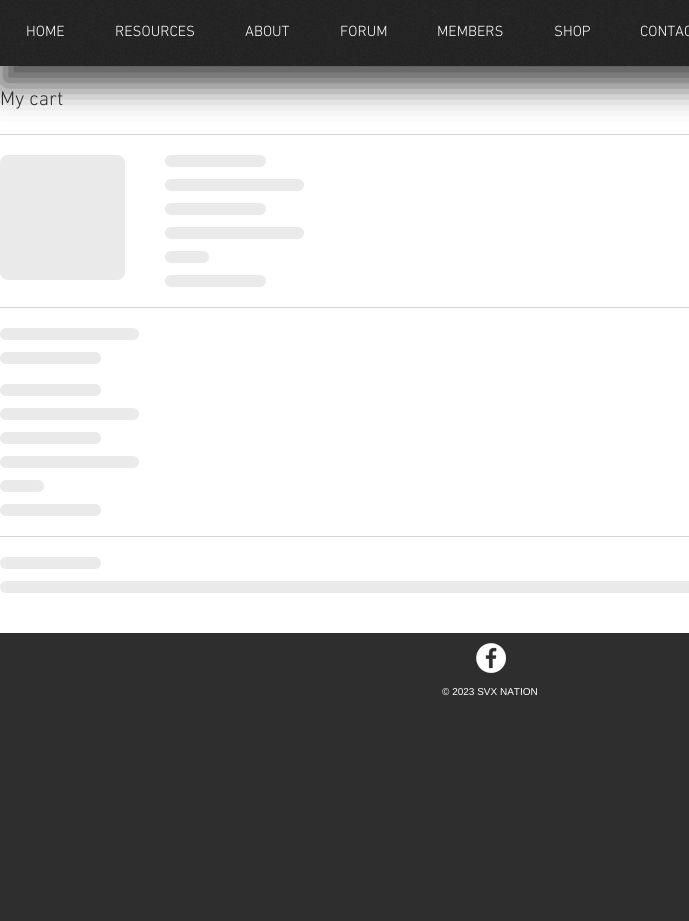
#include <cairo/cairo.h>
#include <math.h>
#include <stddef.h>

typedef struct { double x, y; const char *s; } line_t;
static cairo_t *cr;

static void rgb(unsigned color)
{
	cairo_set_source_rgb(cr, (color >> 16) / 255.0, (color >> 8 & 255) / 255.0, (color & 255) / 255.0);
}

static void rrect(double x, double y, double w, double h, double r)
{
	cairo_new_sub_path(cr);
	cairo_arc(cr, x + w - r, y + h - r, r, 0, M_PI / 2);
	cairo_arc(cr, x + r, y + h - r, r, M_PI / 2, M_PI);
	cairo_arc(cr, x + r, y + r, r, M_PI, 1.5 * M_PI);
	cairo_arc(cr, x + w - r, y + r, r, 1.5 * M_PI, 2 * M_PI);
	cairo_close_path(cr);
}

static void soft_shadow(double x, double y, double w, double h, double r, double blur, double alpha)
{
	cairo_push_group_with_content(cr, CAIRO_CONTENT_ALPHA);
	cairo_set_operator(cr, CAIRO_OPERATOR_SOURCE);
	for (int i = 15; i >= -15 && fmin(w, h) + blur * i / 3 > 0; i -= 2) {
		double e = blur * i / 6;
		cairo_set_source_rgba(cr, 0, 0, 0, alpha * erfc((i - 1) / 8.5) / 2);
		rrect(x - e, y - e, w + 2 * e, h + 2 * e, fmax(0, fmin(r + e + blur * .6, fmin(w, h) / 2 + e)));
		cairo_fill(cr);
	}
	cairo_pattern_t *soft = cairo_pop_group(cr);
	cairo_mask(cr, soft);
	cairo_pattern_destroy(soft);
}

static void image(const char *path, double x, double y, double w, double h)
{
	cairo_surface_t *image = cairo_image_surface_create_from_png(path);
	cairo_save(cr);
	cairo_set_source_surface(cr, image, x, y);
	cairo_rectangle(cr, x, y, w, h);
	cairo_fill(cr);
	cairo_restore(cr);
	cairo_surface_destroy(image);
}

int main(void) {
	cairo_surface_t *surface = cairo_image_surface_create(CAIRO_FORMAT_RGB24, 689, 921);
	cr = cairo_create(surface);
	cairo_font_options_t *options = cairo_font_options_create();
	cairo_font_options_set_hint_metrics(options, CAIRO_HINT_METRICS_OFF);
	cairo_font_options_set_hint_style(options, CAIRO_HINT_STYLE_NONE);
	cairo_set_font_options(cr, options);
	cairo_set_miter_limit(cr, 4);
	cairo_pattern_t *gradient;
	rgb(0x2f2e2e);
	cairo_paint(cr);
	rgb(0xffffff);
	cairo_rectangle(cr, 0, 66, 689, 567);
	cairo_fill(cr);
	rgb(0xd5d5d5);
	cairo_rectangle(cr, 0, 134, 689, 1);
	cairo_fill(cr);
	rgb(0x000000);
	soft_shadow(0, 20, 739, 66, 0, 16.5, 0.7);
	rgb(0x232323);
	cairo_rectangle(cr, 0, 0, 689, 66);
	cairo_fill(cr);
	image("img/1.png", 0, 0, 689, 66);
	gradient = cairo_pattern_create_linear(0, 218, 500, 217);
	cairo_pattern_add_color_stop_rgba(gradient, 0.25, 0.918, 0.918, 0.918, 1);
	cairo_pattern_add_color_stop_rgba(gradient, 0.37, 0.835, 0.835, 0.835, 1);
	cairo_pattern_add_color_stop_rgba(gradient, 0.63, 0.918, 0.918, 0.918, 1);
	cairo_set_source(cr, gradient);
	cairo_pattern_destroy(gradient);
	rrect(0, 155, 125, 125, 8);
	cairo_fill(cr);
	gradient = cairo_pattern_create_linear(165, 161, 569, 161);
	cairo_pattern_add_color_stop_rgba(gradient, 0.25, 0.918, 0.918, 0.918, 1);
	cairo_pattern_add_color_stop_rgba(gradient, 0.37, 0.835, 0.835, 0.835, 1);
	cairo_pattern_add_color_stop_rgba(gradient, 0.63, 0.918, 0.918, 0.918, 1);
	cairo_set_source(cr, gradient);
	cairo_pattern_destroy(gradient);
	rrect(165, 155, 101, 12, 6);
	cairo_fill(cr);
	gradient = cairo_pattern_create_linear(165, 185, 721, 185);
	cairo_pattern_add_color_stop_rgba(gradient, 0.25, 0.918, 0.918, 0.918, 1);
	cairo_pattern_add_color_stop_rgba(gradient, 0.37, 0.835, 0.835, 0.835, 1);
	cairo_pattern_add_color_stop_rgba(gradient, 0.63, 0.918, 0.918, 0.918, 1);
	cairo_set_source(cr, gradient);
	cairo_pattern_destroy(gradient);
	rrect(165, 179, 139, 12, 6);
	cairo_fill(cr);
	gradient = cairo_pattern_create_linear(165, 209, 569, 209);
	cairo_pattern_add_color_stop_rgba(gradient, 0.25, 0.918, 0.918, 0.918, 1);
	cairo_pattern_add_color_stop_rgba(gradient, 0.37, 0.835, 0.835, 0.835, 1);
	cairo_pattern_add_color_stop_rgba(gradient, 0.63, 0.918, 0.918, 0.918, 1);
	cairo_set_source(cr, gradient);
	cairo_pattern_destroy(gradient);
	rrect(165, 203, 101, 12, 6);
	cairo_fill(cr);
	gradient = cairo_pattern_create_linear(165, 233, 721, 233);
	cairo_pattern_add_color_stop_rgba(gradient, 0.25, 0.918, 0.918, 0.918, 1);
	cairo_pattern_add_color_stop_rgba(gradient, 0.37, 0.835, 0.835, 0.835, 1);
	cairo_pattern_add_color_stop_rgba(gradient, 0.63, 0.918, 0.918, 0.918, 1);
	cairo_set_source(cr, gradient);
	cairo_pattern_destroy(gradient);
	rrect(165, 227, 139, 12, 6);
	cairo_fill(cr);
	gradient = cairo_pattern_create_linear(165, 257, 341, 257);
	cairo_pattern_add_color_stop_rgba(gradient, 0.25, 0.918, 0.918, 0.918, 1);
	cairo_pattern_add_color_stop_rgba(gradient, 0.37, 0.835, 0.835, 0.835, 1);
	cairo_pattern_add_color_stop_rgba(gradient, 0.63, 0.918, 0.918, 0.918, 1);
	cairo_set_source(cr, gradient);
	cairo_pattern_destroy(gradient);
	rrect(165, 251, 44, 12, 6);
	cairo_fill(cr);
	gradient = cairo_pattern_create_linear(165, 281, 569, 281);
	cairo_pattern_add_color_stop_rgba(gradient, 0.25, 0.918, 0.918, 0.918, 1);
	cairo_pattern_add_color_stop_rgba(gradient, 0.37, 0.835, 0.835, 0.835, 1);
	cairo_pattern_add_color_stop_rgba(gradient, 0.63, 0.918, 0.918, 0.918, 1);
	cairo_set_source(cr, gradient);
	cairo_pattern_destroy(gradient);
	rrect(165, 275, 101, 12, 6);
	cairo_fill(cr);
	rgb(0xd5d5d5);
	cairo_rectangle(cr, 0, 307, 689, 1);
	cairo_fill(cr);
	gradient = cairo_pattern_create_linear(0, 334, 556, 334);
	cairo_pattern_add_color_stop_rgba(gradient, 0.25, 0.918, 0.918, 0.918, 1);
	cairo_pattern_add_color_stop_rgba(gradient, 0.37, 0.835, 0.835, 0.835, 1);
	cairo_pattern_add_color_stop_rgba(gradient, 0.63, 0.918, 0.918, 0.918, 1);
	cairo_set_source(cr, gradient);
	cairo_pattern_destroy(gradient);
	rrect(0, 328, 139, 12, 6);
	cairo_fill(cr);
	gradient = cairo_pattern_create_linear(0, 358, 404, 358);
	cairo_pattern_add_color_stop_rgba(gradient, 0.25, 0.918, 0.918, 0.918, 1);
	cairo_pattern_add_color_stop_rgba(gradient, 0.37, 0.835, 0.835, 0.835, 1);
	cairo_pattern_add_color_stop_rgba(gradient, 0.63, 0.918, 0.918, 0.918, 1);
	cairo_set_source(cr, gradient);
	cairo_pattern_destroy(gradient);
	rrect(0, 352, 101, 12, 6);
	cairo_fill(cr);
	gradient = cairo_pattern_create_linear(0, 390, 404, 390);
	cairo_pattern_add_color_stop_rgba(gradient, 0.25, 0.918, 0.918, 0.918, 1);
	cairo_pattern_add_color_stop_rgba(gradient, 0.37, 0.835, 0.835, 0.835, 1);
	cairo_pattern_add_color_stop_rgba(gradient, 0.63, 0.918, 0.918, 0.918, 1);
	cairo_set_source(cr, gradient);
	cairo_pattern_destroy(gradient);
	rrect(0, 384, 101, 12, 6);
	cairo_fill(cr);
	gradient = cairo_pattern_create_linear(0, 414, 556, 414);
	cairo_pattern_add_color_stop_rgba(gradient, 0.25, 0.918, 0.918, 0.918, 1);
	cairo_pattern_add_color_stop_rgba(gradient, 0.37, 0.835, 0.835, 0.835, 1);
	cairo_pattern_add_color_stop_rgba(gradient, 0.63, 0.918, 0.918, 0.918, 1);
	cairo_set_source(cr, gradient);
	cairo_pattern_destroy(gradient);
	rrect(0, 408, 139, 12, 6);
	cairo_fill(cr);
	gradient = cairo_pattern_create_linear(0, 438, 404, 438);
	cairo_pattern_add_color_stop_rgba(gradient, 0.25, 0.918, 0.918, 0.918, 1);
	cairo_pattern_add_color_stop_rgba(gradient, 0.37, 0.835, 0.835, 0.835, 1);
	cairo_pattern_add_color_stop_rgba(gradient, 0.63, 0.918, 0.918, 0.918, 1);
	cairo_set_source(cr, gradient);
	cairo_pattern_destroy(gradient);
	rrect(0, 432, 101, 12, 6);
	cairo_fill(cr);
	gradient = cairo_pattern_create_linear(0, 462, 556, 462);
	cairo_pattern_add_color_stop_rgba(gradient, 0.25, 0.918, 0.918, 0.918, 1);
	cairo_pattern_add_color_stop_rgba(gradient, 0.37, 0.835, 0.835, 0.835, 1);
	cairo_pattern_add_color_stop_rgba(gradient, 0.63, 0.918, 0.918, 0.918, 1);
	cairo_set_source(cr, gradient);
	cairo_pattern_destroy(gradient);
	rrect(0, 456, 139, 12, 6);
	cairo_fill(cr);
	gradient = cairo_pattern_create_linear(0, 486, 176, 486);
	cairo_pattern_add_color_stop_rgba(gradient, 0.25, 0.918, 0.918, 0.918, 1);
	cairo_pattern_add_color_stop_rgba(gradient, 0.37, 0.835, 0.835, 0.835, 1);
	cairo_pattern_add_color_stop_rgba(gradient, 0.63, 0.918, 0.918, 0.918, 1);
	cairo_set_source(cr, gradient);
	cairo_pattern_destroy(gradient);
	rrect(0, 480, 44, 12, 6);
	cairo_fill(cr);
	gradient = cairo_pattern_create_linear(0, 510, 404, 510);
	cairo_pattern_add_color_stop_rgba(gradient, 0.25, 0.918, 0.918, 0.918, 1);
	cairo_pattern_add_color_stop_rgba(gradient, 0.37, 0.835, 0.835, 0.835, 1);
	cairo_pattern_add_color_stop_rgba(gradient, 0.63, 0.918, 0.918, 0.918, 1);
	cairo_set_source(cr, gradient);
	cairo_pattern_destroy(gradient);
	rrect(0, 504, 101, 12, 6);
	cairo_fill(cr);
	rgb(0xd5d5d5);
	cairo_rectangle(cr, 0, 536, 689, 1);
	cairo_fill(cr);
	gradient = cairo_pattern_create_linear(0, 563, 404, 563);
	cairo_pattern_add_color_stop_rgba(gradient, 0.25, 0.918, 0.918, 0.918, 1);
	cairo_pattern_add_color_stop_rgba(gradient, 0.37, 0.835, 0.835, 0.835, 1);
	cairo_pattern_add_color_stop_rgba(gradient, 0.63, 0.918, 0.918, 0.918, 1);
	cairo_set_source(cr, gradient);
	cairo_pattern_destroy(gradient);
	rrect(0, 557, 101, 12, 6);
	cairo_fill(cr);
	gradient = cairo_pattern_create_linear(0, 587, 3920, 587);
	cairo_pattern_add_color_stop_rgba(gradient, 0.25, 0.918, 0.918, 0.918, 1);
	cairo_pattern_add_color_stop_rgba(gradient, 0.37, 0.835, 0.835, 0.835, 1);
	cairo_pattern_add_color_stop_rgba(gradient, 0.63, 0.918, 0.918, 0.918, 1);
	cairo_set_source(cr, gradient);
	cairo_pattern_destroy(gradient);
	rrect(0, 581, 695, 12, 6);
	cairo_fill(cr);
	image("img/2.png", 476, 643, 30, 30);
	cairo_select_font_face(cr, "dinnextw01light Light", CAIRO_FONT_SLANT_NORMAL, CAIRO_FONT_WEIGHT_NORMAL);
	cairo_set_font_size(cr, 15);
	rgb(0xffffff);
	{
		static const line_t items[] = {
			{26, 36, "HOME"},
			{115, 36, "RESOURCES"},
			{245, 36, "ABOUT"},
			{340, 36, "FORUM"},
			{437, 36, "MEMBERS"},
			{554, 36, "SHOP"},
			{640, 36, "CONTAC"},
		};
		for (size_t i = 0; i < sizeof items / sizeof *items; i++) {
			cairo_move_to(cr, items[i].x, items[i].y);
			cairo_show_text(cr, items[i].s);
		}
	}
	cairo_set_font_size(cr, 20);
	rgb(0x2f2e2e);
	cairo_move_to(cr, 0, 105);
	cairo_show_text(cr, "My cart");
	cairo_select_font_face(cr, "Liberation Sans", CAIRO_FONT_SLANT_NORMAL, CAIRO_FONT_WEIGHT_NORMAL);
	cairo_set_font_size(cr, 10);
	rgb(0xffffff);
	cairo_move_to(cr, 442, 695);
	cairo_show_text(cr, "© 2023 SVX NATION");
	cairo_surface_write_to_png(surface, "page.png");
	cairo_font_options_destroy(options);
	cairo_destroy(cr);
	cairo_surface_destroy(surface);
	return 0;
}
